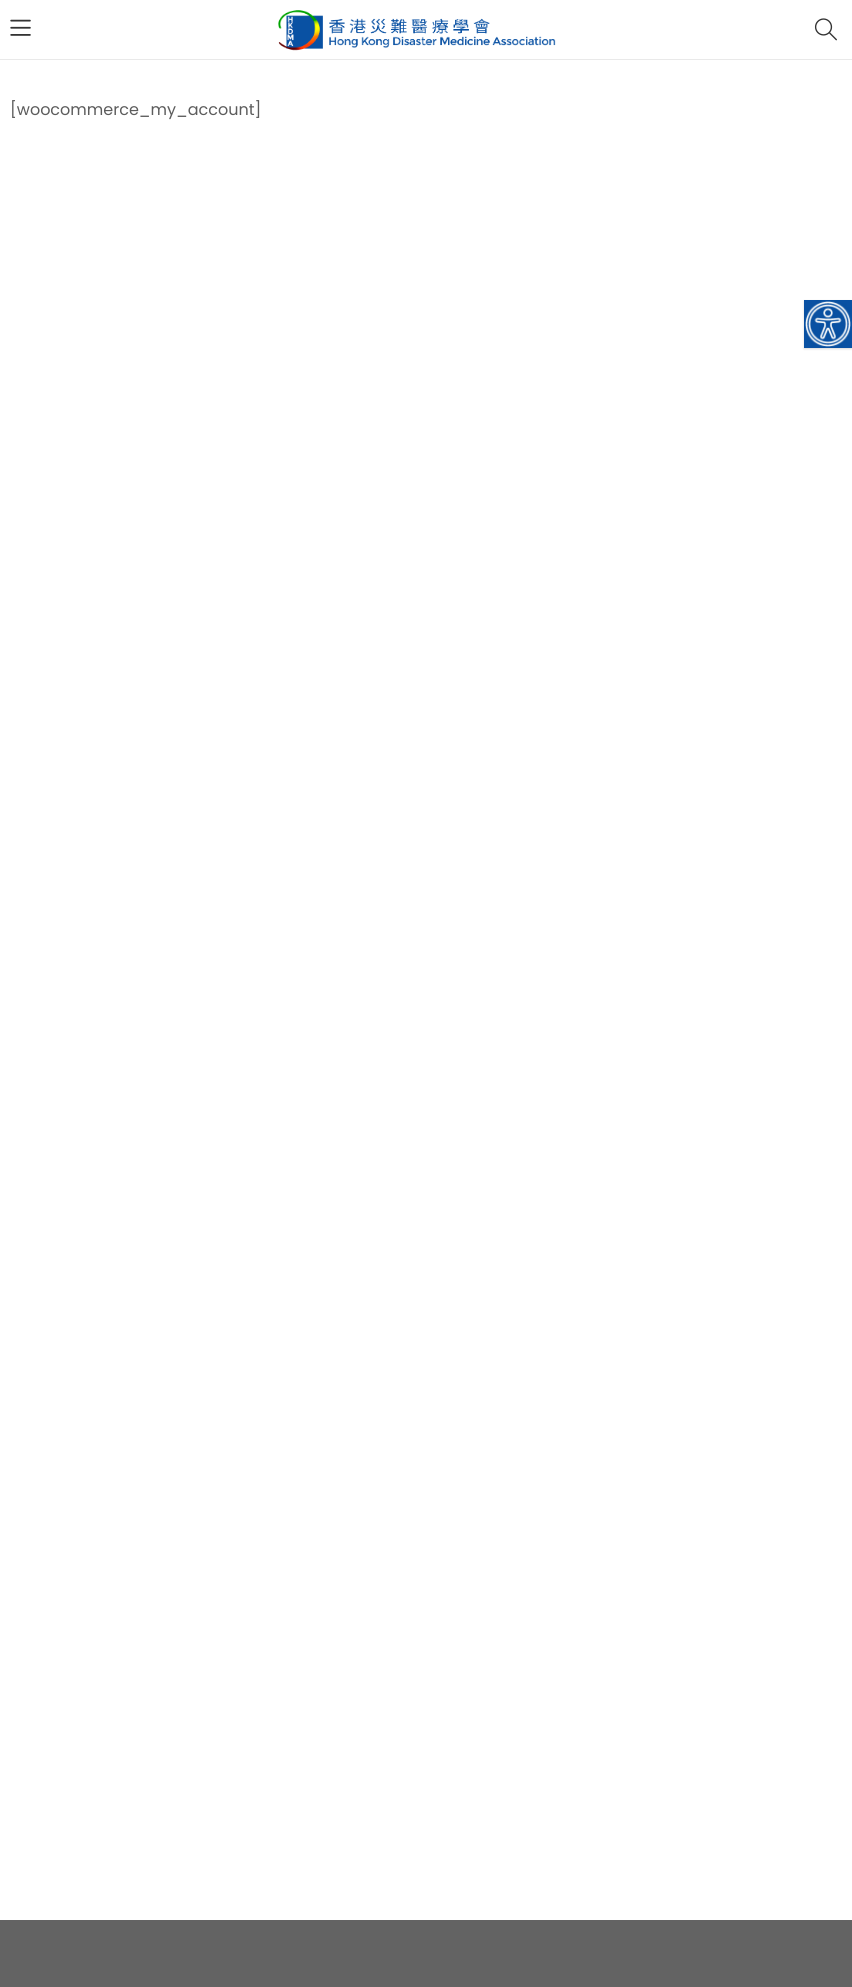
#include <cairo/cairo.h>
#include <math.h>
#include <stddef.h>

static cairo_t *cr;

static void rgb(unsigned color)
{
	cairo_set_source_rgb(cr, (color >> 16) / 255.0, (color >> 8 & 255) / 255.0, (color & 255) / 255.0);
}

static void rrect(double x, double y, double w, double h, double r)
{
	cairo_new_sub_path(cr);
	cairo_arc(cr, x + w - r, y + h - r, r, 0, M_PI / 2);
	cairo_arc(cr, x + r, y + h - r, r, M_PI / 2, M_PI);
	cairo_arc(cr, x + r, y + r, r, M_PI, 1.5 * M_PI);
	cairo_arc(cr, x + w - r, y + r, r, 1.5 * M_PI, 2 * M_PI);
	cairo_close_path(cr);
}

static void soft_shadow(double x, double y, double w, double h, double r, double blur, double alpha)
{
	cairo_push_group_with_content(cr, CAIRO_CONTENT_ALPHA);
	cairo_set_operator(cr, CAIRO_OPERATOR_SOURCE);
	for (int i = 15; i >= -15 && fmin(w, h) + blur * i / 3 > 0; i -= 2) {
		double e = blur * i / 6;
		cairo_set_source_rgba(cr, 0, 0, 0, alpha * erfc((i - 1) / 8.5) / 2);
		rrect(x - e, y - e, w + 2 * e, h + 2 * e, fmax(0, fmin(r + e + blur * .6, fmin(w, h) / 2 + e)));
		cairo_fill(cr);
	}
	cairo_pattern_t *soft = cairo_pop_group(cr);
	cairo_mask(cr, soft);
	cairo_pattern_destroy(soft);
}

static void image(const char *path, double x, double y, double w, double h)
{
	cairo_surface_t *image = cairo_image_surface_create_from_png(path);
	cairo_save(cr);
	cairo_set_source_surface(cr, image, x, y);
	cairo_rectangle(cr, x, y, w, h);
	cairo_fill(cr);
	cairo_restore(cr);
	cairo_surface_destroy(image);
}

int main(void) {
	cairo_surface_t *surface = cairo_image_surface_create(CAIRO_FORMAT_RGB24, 852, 1987);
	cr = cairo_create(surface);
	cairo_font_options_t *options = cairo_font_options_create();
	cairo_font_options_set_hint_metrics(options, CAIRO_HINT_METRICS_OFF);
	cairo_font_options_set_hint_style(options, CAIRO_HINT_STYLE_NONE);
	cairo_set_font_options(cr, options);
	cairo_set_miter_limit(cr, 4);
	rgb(0xffffff);
	cairo_paint(cr);
	rgb(0xe9e9e9);
	cairo_rectangle(cr, 0, 59, 852, 1);
	cairo_fill(cr);
	image("img/1.png", 10, 19, 21, 17);
	image("img/2.png", 278, 10, 278, 41);
	image("img/3.png", 814, 18, 23, 23);
	rgb(0x636363);
	cairo_rectangle(cr, 0, 1920, 852, 67);
	cairo_fill(cr);
	rgb(0x000000);
	soft_shadow(804, 301, 48, 48, 0, 1, 0.15);
	image("img/4.png", 804, 300, 48, 48);
	cairo_select_font_face(cr, "Poppins", CAIRO_FONT_SLANT_NORMAL, CAIRO_FONT_WEIGHT_NORMAL);
	cairo_set_font_size(cr, 16);
	rgb(0x5c5c5c);
	cairo_move_to(cr, 10, 115);
	cairo_show_text(cr, "[woocommerce_my_account]");
	cairo_surface_write_to_png(surface, "page.png");
	cairo_font_options_destroy(options);
	cairo_destroy(cr);
	cairo_surface_destroy(surface);
	return 0;
}
